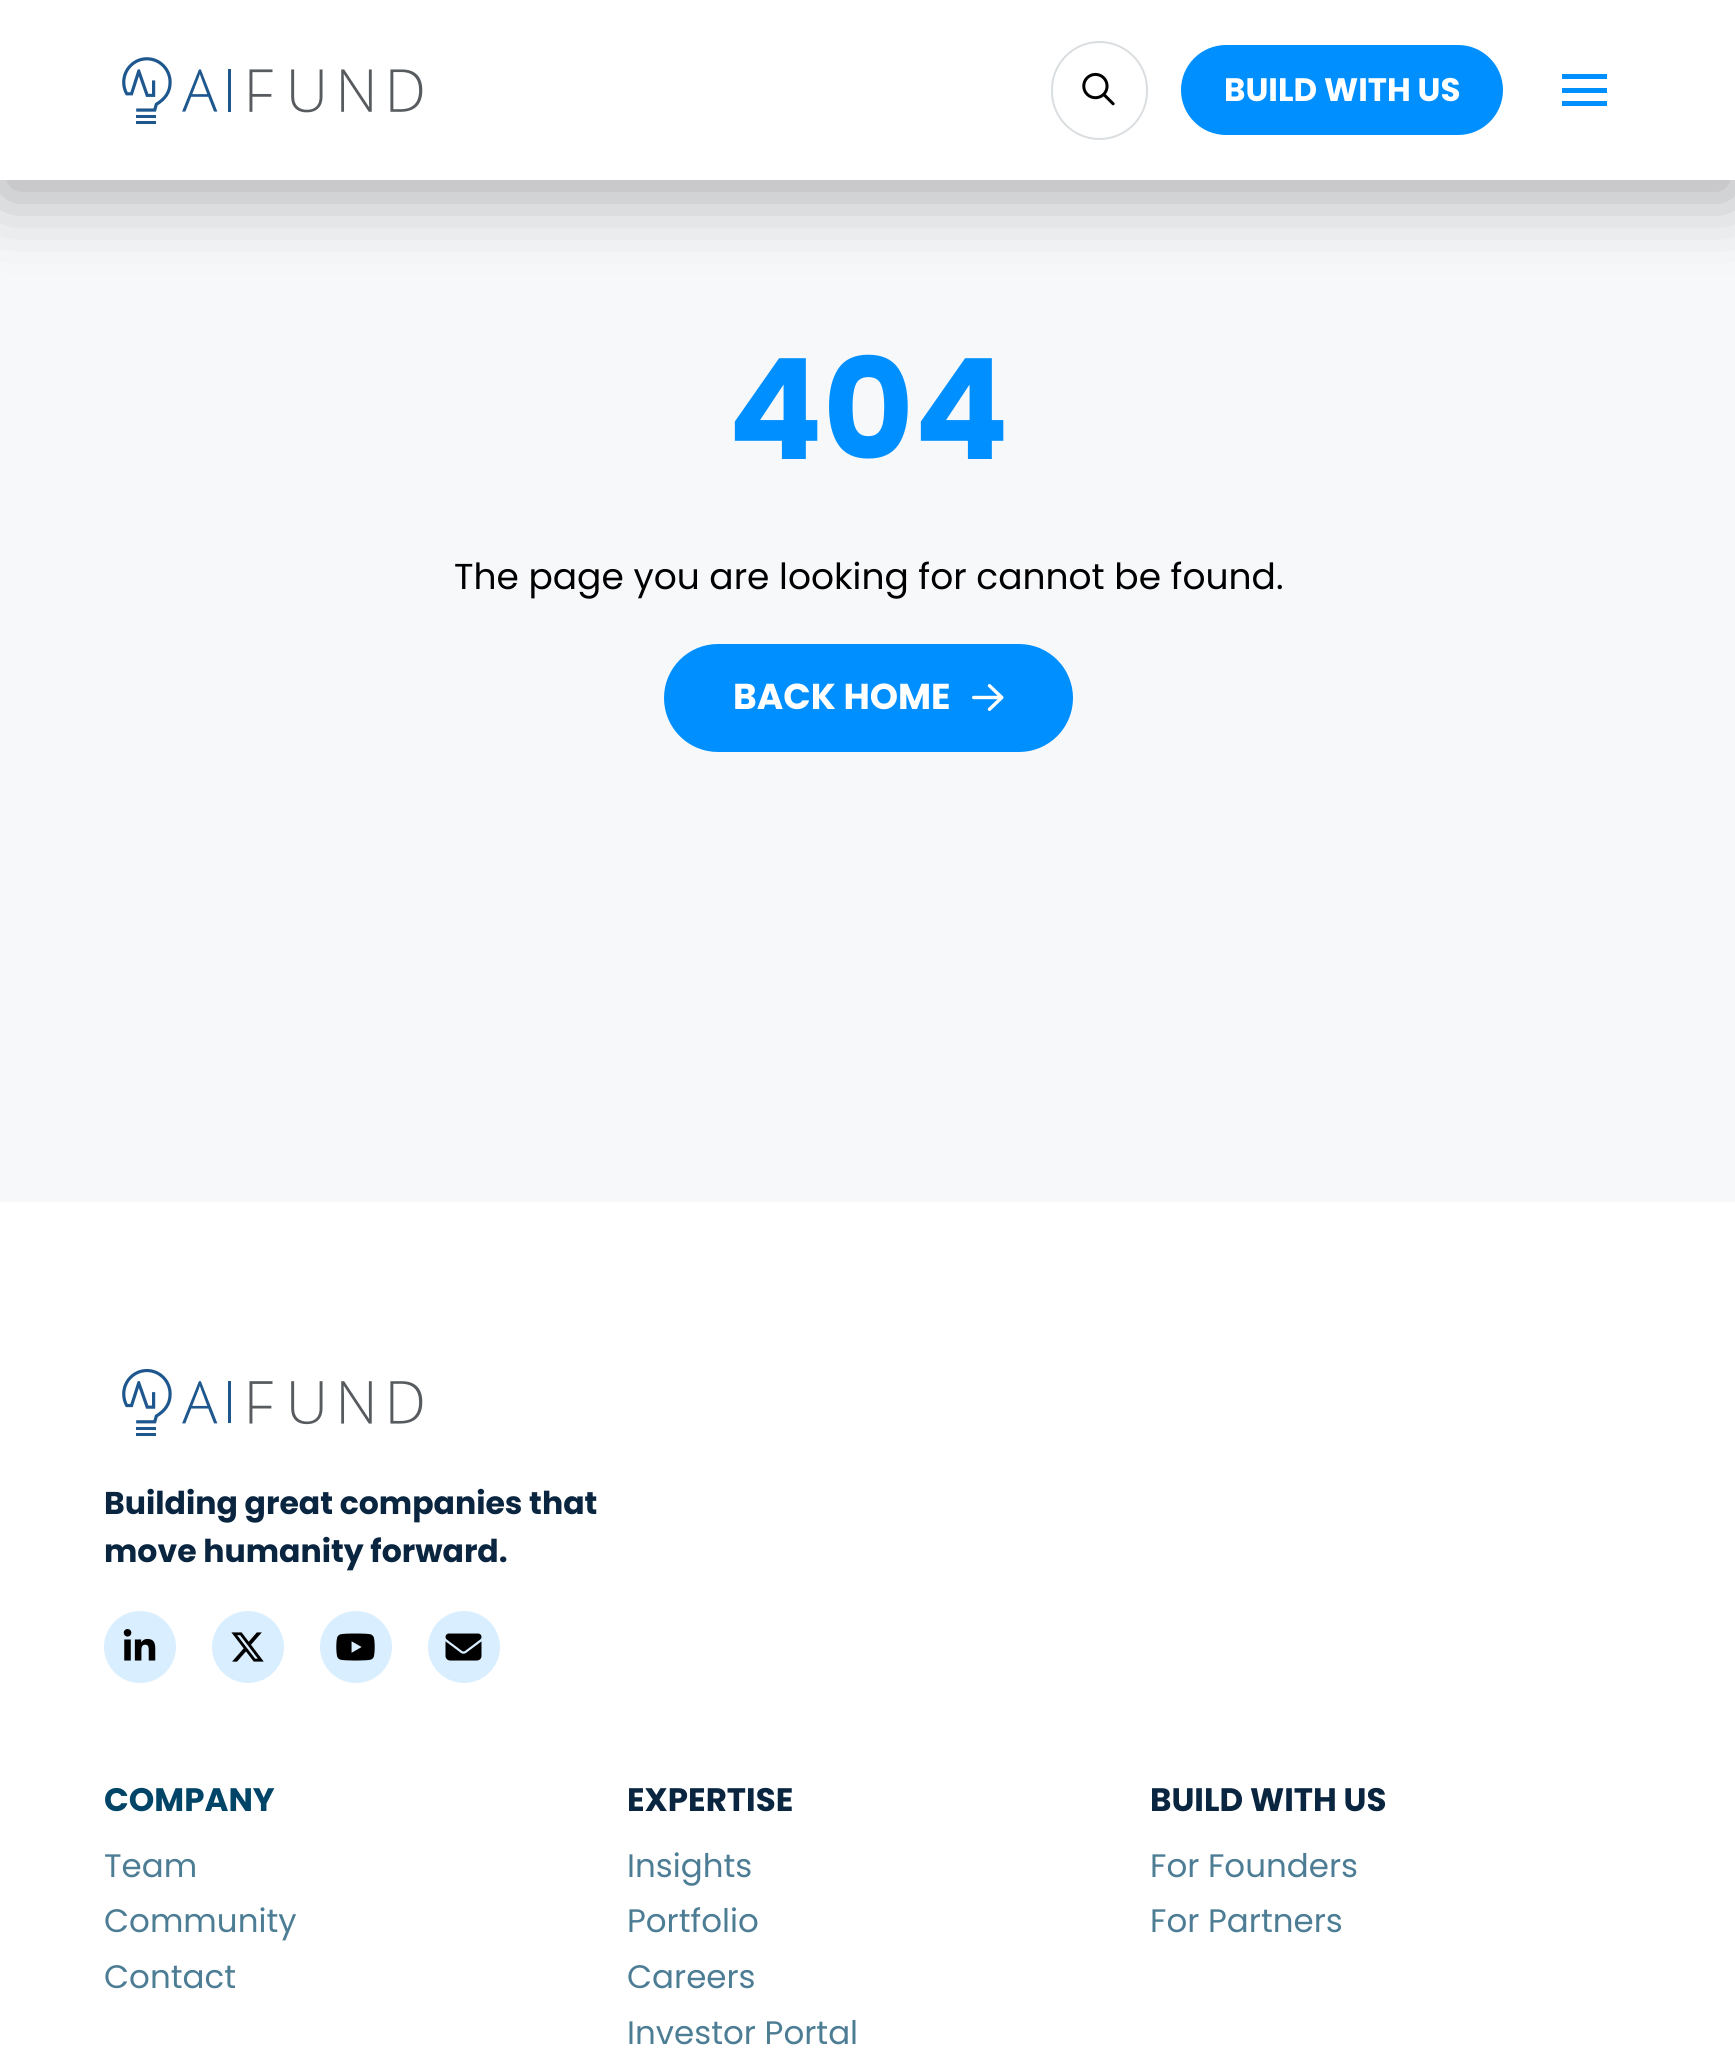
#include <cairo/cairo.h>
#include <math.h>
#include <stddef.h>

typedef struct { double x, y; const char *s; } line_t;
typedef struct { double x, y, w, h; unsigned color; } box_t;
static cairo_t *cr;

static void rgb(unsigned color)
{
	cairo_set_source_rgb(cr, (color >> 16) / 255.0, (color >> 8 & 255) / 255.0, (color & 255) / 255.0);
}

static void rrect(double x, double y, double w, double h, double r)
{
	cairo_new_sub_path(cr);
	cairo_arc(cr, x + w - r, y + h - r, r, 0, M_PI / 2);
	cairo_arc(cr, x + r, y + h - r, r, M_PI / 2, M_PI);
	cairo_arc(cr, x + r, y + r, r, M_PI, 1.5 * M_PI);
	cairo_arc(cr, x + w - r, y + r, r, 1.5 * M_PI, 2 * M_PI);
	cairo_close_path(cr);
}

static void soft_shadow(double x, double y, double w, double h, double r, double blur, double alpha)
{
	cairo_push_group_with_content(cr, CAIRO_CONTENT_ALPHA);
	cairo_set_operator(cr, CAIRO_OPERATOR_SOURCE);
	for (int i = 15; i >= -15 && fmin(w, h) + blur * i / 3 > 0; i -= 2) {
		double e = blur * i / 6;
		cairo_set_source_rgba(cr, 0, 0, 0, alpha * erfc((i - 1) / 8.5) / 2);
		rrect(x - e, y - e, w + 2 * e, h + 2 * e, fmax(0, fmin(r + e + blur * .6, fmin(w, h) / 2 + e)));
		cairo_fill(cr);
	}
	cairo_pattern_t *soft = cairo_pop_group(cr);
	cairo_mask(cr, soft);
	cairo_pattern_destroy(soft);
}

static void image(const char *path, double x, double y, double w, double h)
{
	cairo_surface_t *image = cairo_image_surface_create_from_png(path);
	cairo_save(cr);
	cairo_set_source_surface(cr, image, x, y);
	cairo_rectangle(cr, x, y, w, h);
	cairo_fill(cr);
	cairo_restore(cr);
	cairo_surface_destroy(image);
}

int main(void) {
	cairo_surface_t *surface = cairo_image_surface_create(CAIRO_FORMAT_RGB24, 1735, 2066);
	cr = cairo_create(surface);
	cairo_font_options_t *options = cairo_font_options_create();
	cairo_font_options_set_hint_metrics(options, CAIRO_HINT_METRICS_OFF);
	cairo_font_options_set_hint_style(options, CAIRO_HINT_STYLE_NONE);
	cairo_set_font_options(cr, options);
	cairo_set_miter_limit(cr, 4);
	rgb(0xffffff);
	cairo_paint(cr);
	rgb(0xf7f8fa);
	cairo_rectangle(cr, 0, 180, 1735, 1022);
	cairo_fill(cr);
	rgb(0x000000);
	soft_shadow(0, 18, 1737, 180, 0, 36, 0.3);
	rgb(0xffffff);
	cairo_rectangle(cr, 0, 0, 1735, 180);
	cairo_fill(cr);
	image("img/1.png", 122, 57, 301, 67);
	rrect(1052, 42, 95, 97, 47.5);
	rgb(0xdadee1);
	cairo_stroke(cr);
	image("img/2.png", 1082, 72, 33, 34);
	rgb(0x008fff);
	rrect(1181, 45, 322, 90, 45);
	cairo_fill(cr);
	{
		static const box_t items[] = {
			{1562, 74, 45, 5, 0x008fff},
			{1562, 88, 45, 5, 0x008fff},
			{1562, 101, 45, 5, 0x008fff},
		};
		for (size_t i = 0; i < sizeof items / sizeof *items; i++) {
			rgb(items[i].color);
			cairo_rectangle(cr, items[i].x, items[i].y, items[i].w, items[i].h);
			cairo_fill(cr);
		}
	}
	rrect(666.5, 646.5, 404, 103, 51.5);
	cairo_fill_preserve(cr);
	cairo_set_line_width(cr, 5);
	cairo_stroke(cr);
	image("img/3.png", 972, 684, 32, 27);
	image("img/4.png", 122, 1368, 301, 68);
	rgb(0xd9eeff);
	cairo_arc(cr, 140, 1647, 36, 0, 2 * M_PI);
	cairo_fill(cr);
	image("img/5.png", 123, 1629, 33, 32);
	cairo_arc(cr, 248, 1647, 36, 0, 2 * M_PI);
	cairo_fill(cr);
	image("img/6.png", 231, 1632, 33, 30);
	cairo_arc(cr, 356, 1647, 36, 0, 2 * M_PI);
	cairo_fill(cr);
	image("img/7.png", 336, 1633, 39, 28);
	cairo_arc(cr, 464, 1647, 36, 0, 2 * M_PI);
	cairo_fill(cr);
	image("img/8.png", 445, 1633, 37, 28);
	cairo_select_font_face(cr, "Poppins", CAIRO_FONT_SLANT_NORMAL, CAIRO_FONT_WEIGHT_BOLD);
	cairo_set_font_size(cr, 32.5);
	rgb(0xffffff);
	cairo_move_to(cr, 1224, 101);
	cairo_show_text(cr, "BUILD WITH US");
	cairo_set_font_size(cr, 140);
	rgb(0x008fff);
	cairo_move_to(cr, 728, 459);
	cairo_show_text(cr, "404");
	cairo_select_font_face(cr, "Poppins", CAIRO_FONT_SLANT_NORMAL, CAIRO_FONT_WEIGHT_NORMAL);
	cairo_set_font_size(cr, 36);
	rgb(0x000000);
	cairo_move_to(cr, 454, 589);
	cairo_show_text(cr, "The page you are looking for cannot be found.");
	cairo_select_font_face(cr, "Poppins", CAIRO_FONT_SLANT_NORMAL, CAIRO_FONT_WEIGHT_BOLD);
	rgb(0xffffff);
	cairo_move_to(cr, 733, 709);
	cairo_show_text(cr, "BACK HOME");
	cairo_set_font_size(cr, 31.5);
	rgb(0x0a2540);
	cairo_move_to(cr, 104, 1514);
	cairo_show_text(cr, "Building great companies that");
	cairo_move_to(cr, 104, 1562);
	cairo_show_text(cr, "move humanity forward.");
	cairo_set_font_size(cr, 32.5);
	rgb(0x004567);
	cairo_move_to(cr, 104, 1811);
	cairo_show_text(cr, "COMPANY");
	cairo_select_font_face(cr, "Poppins", CAIRO_FONT_SLANT_NORMAL, CAIRO_FONT_WEIGHT_NORMAL);
	rgb(0x4d7d95);
	{
		static const line_t items[] = {
			{104, 1877, "Team"},
			{104, 1932, "Community"},
			{104, 1988, "Contact"},
		};
		for (size_t i = 0; i < sizeof items / sizeof *items; i++) {
			cairo_move_to(cr, items[i].x, items[i].y);
			cairo_show_text(cr, items[i].s);
		}
	}
	cairo_select_font_face(cr, "Poppins", CAIRO_FONT_SLANT_NORMAL, CAIRO_FONT_WEIGHT_BOLD);
	rgb(0x0a2540);
	cairo_move_to(cr, 627, 1811);
	cairo_show_text(cr, "EXPERTISE");
	cairo_select_font_face(cr, "Poppins", CAIRO_FONT_SLANT_NORMAL, CAIRO_FONT_WEIGHT_NORMAL);
	rgb(0x4d7d95);
	{
		static const line_t items[] = {
			{627, 1877, "Insights"},
			{627, 1932, "Portfolio"},
			{627, 1988, "Careers"},
			{627, 2044, "Investor Portal"},
		};
		for (size_t i = 0; i < sizeof items / sizeof *items; i++) {
			cairo_move_to(cr, items[i].x, items[i].y);
			cairo_show_text(cr, items[i].s);
		}
	}
	cairo_select_font_face(cr, "Poppins", CAIRO_FONT_SLANT_NORMAL, CAIRO_FONT_WEIGHT_BOLD);
	rgb(0x0a2540);
	cairo_move_to(cr, 1150, 1811);
	cairo_show_text(cr, "BUILD WITH US");
	cairo_select_font_face(cr, "Poppins", CAIRO_FONT_SLANT_NORMAL, CAIRO_FONT_WEIGHT_NORMAL);
	rgb(0x4d7d95);
	cairo_move_to(cr, 1150, 1877);
	cairo_show_text(cr, "For Founders");
	cairo_move_to(cr, 1150, 1932);
	cairo_show_text(cr, "For Partners");
	cairo_surface_write_to_png(surface, "page.png");
	cairo_font_options_destroy(options);
	cairo_destroy(cr);
	cairo_surface_destroy(surface);
	return 0;
}
